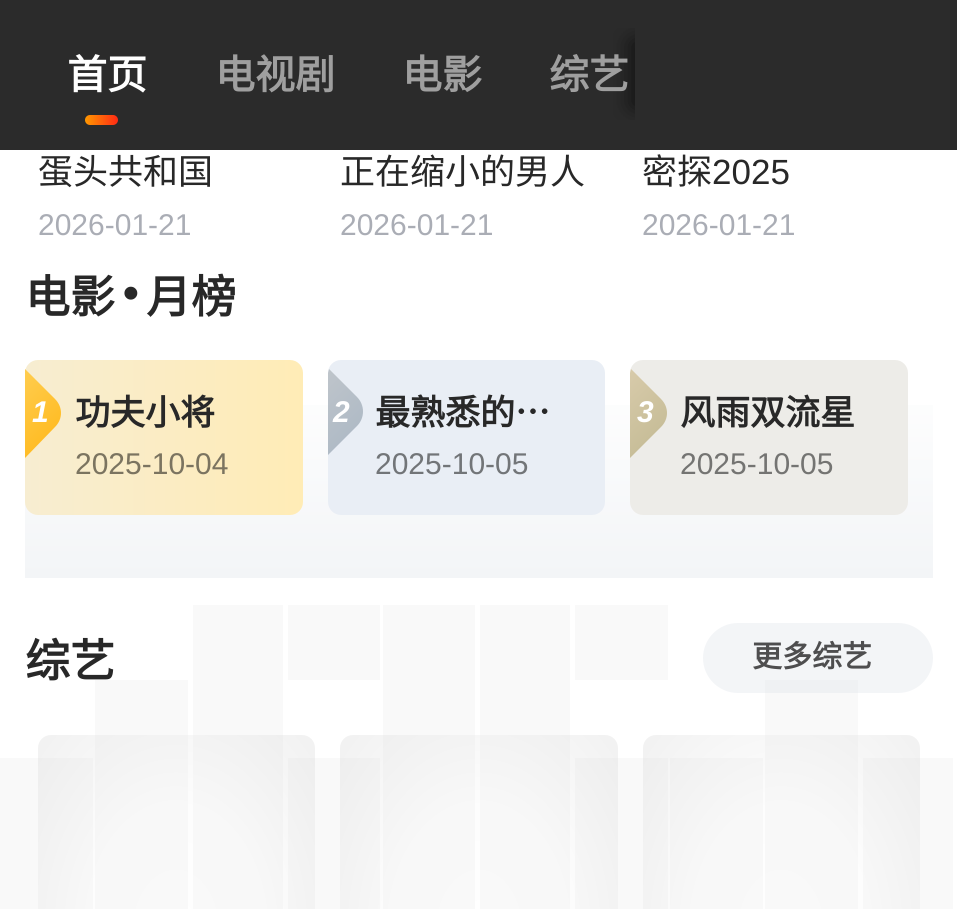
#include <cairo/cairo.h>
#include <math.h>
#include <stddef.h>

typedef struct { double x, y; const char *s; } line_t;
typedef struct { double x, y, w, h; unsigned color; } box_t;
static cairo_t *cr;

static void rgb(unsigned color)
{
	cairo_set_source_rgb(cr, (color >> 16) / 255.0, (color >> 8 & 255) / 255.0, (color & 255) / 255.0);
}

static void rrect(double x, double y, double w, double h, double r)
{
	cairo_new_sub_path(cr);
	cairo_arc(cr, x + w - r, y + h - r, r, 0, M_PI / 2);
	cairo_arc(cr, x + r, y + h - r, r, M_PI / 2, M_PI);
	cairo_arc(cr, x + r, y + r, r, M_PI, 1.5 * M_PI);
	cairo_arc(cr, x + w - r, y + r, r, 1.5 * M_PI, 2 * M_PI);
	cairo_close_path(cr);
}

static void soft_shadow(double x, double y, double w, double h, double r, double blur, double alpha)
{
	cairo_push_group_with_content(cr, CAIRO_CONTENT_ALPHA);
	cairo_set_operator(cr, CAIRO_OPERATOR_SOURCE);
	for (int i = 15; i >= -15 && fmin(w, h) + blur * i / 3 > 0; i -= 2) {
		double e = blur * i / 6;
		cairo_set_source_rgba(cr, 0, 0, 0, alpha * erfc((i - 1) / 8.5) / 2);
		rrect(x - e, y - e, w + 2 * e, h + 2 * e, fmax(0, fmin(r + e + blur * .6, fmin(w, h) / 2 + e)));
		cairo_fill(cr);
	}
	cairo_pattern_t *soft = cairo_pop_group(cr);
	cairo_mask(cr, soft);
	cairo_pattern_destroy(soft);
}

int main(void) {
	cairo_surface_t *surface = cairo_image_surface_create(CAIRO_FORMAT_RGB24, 957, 909);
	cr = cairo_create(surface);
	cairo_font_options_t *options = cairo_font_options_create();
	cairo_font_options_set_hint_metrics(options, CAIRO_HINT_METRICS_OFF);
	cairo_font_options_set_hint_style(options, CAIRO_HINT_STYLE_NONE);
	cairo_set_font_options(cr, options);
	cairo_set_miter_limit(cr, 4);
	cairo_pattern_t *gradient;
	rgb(0xffffff);
	cairo_paint(cr);
	{
		static const box_t items[] = {
			{765, 693, 93, 42, 0xf9f9f9},
			{480, 605, 90, 130, 0xf9f9f9},
			{383, 605, 92, 130, 0xf9f9f9},
			{193, 605, 90, 130, 0xf9f9f9},
			{95, 680, 93, 55, 0xf9f9f9},
			{920, 758, 33, 151, 0xf9f9f9},
			{618, 758, 25, 151, 0xf9f9f9},
			{315, 758, 25, 151, 0xf9f9f9},
			{0, 758, 38, 151, 0xf9f9f9},
			{0, 0, 957, 150, 0x2b2b2b},
		};
		for (size_t i = 0; i < sizeof items / sizeof *items; i++) {
			rgb(items[i].color);
			cairo_rectangle(cr, items[i].x, items[i].y, items[i].w, items[i].h);
			cairo_fill(cr);
		}
	}
	gradient = cairo_pattern_create_linear(85, 120, 118, 120);
	cairo_pattern_add_color_stop_rgba(gradient, 0, 1, 0.596, 0, 1);
	cairo_pattern_add_color_stop_rgba(gradient, 1, 1, 0.165, 0.078, 1);
	cairo_set_source(cr, gradient);
	cairo_pattern_destroy(gradient);
	rrect(85, 115, 33, 10, 5);
	cairo_fill(cr);
	cairo_save(cr);
	cairo_rectangle(cr, 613, 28, 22, 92);
	cairo_clip(cr);
	rgb(0x000000);
	soft_shadow(633, 43, 10, 62, 0, 11, 0.7);
	cairo_restore(cr);
	gradient = cairo_pattern_create_linear(479, 360, 479, 578);
	cairo_pattern_add_color_stop_rgba(gradient, 0, 1, 1, 1, 1);
	cairo_pattern_add_color_stop_rgba(gradient, 1, 0.953, 0.961, 0.969, 1);
	cairo_set_source(cr, gradient);
	cairo_pattern_destroy(gradient);
	cairo_rectangle(cr, 25, 405, 908, 173);
	cairo_fill(cr);
	gradient = cairo_pattern_create_linear(25, 438, 303, 438);
	cairo_pattern_add_color_stop_rgba(gradient, 0, 0.969, 0.929, 0.82, 1);
	cairo_pattern_add_color_stop_rgba(gradient, 1, 1, 0.925, 0.714, 1);
	cairo_set_source(cr, gradient);
	cairo_pattern_destroy(gradient);
	rrect(25, 360, 278, 155, 13);
	cairo_fill(cr);
	cairo_save(cr);
	cairo_rectangle(cr, 25, 360, 908, 218);
	cairo_clip(cr);
	gradient = cairo_pattern_create_linear(-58, 349, 38, 445);
	cairo_pattern_add_color_stop_rgba(gradient, 0, 1, 0.875, 0.49, 1);
	cairo_pattern_add_color_stop_rgba(gradient, 1, 1, 0.741, 0.153, 1);
	cairo_set_source(cr, gradient);
	cairo_pattern_destroy(gradient);
	cairo_new_path(cr);
	cairo_move_to(cr, 25, 369);
	cairo_curve_to(cr, 24, 375, 25, 384, 25, 387);
	cairo_line_to(cr, 25, 458);
	cairo_line_to(cr, 55, 427);
	cairo_curve_to(cr, 63, 419, 63, 407, 55, 399);
	cairo_close_path(cr);
	cairo_fill(cr);
	cairo_restore(cr);
	rgb(0xe9eef5);
	rrect(328, 360, 277, 155, 13);
	cairo_fill(cr);
	gradient = cairo_pattern_create_linear(247, 351, 340, 443);
	cairo_pattern_add_color_stop_rgba(gradient, 0, 0.816, 0.816, 0.816, 1);
	cairo_pattern_add_color_stop_rgba(gradient, 1, 0.69, 0.733, 0.776, 1);
	cairo_set_source(cr, gradient);
	cairo_pattern_destroy(gradient);
	cairo_new_path(cr);
	cairo_move_to(cr, 329, 369);
	cairo_line_to(cr, 357, 397);
	cairo_curve_to(cr, 365, 405, 365, 418, 357, 426);
	cairo_line_to(cr, 328, 455);
	cairo_line_to(cr, 328, 373);
	cairo_close_path(cr);
	cairo_fill(cr);
	rgb(0xedece8);
	rrect(630, 360, 278, 155, 13);
	cairo_fill(cr);
	gradient = cairo_pattern_create_linear(548, 349, 643, 445);
	cairo_pattern_add_color_stop_rgba(gradient, 0, 0.918, 0.851, 0.745, 1);
	cairo_pattern_add_color_stop_rgba(gradient, 1, 0.784, 0.745, 0.6, 1);
	cairo_set_source(cr, gradient);
	cairo_pattern_destroy(gradient);
	cairo_new_path(cr);
	cairo_move_to(cr, 631, 369);
	cairo_line_to(cr, 661, 399);
	cairo_curve_to(cr, 669, 407, 669, 419, 661, 427);
	cairo_line_to(cr, 630, 458);
	cairo_line_to(cr, 630, 373);
	cairo_close_path(cr);
	cairo_fill(cr);
	rgb(0xf3f5f7);
	rrect(703, 623, 230, 70, 35);
	cairo_fill(cr);
	rgb(0xeff1f3);
	cairo_rectangle(cr, 765, 680, 93, 13);
	cairo_fill(cr);
	gradient = cairo_pattern_create_radial(0, 0, 0, 0, 0, 1);
	cairo_pattern_set_matrix(gradient, &(cairo_matrix_t){1.0 / 196, 0, 0, 1.0 / 276, -1.0 * 176 / 196, -1.0 * 930 / 276});
	cairo_pattern_add_color_stop_rgba(gradient, 0, 1, 1, 1, 1);
	cairo_pattern_add_color_stop_rgba(gradient, 0.44, 0.992, 0.992, 0.992, 1);
	cairo_pattern_add_color_stop_rgba(gradient, 1, 0.945, 0.945, 0.945, 1);
	cairo_set_source(cr, gradient);
	cairo_pattern_destroy(gradient);
	rrect(38, 735, 277, 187, 13);
	cairo_fill(cr);
	gradient = cairo_pattern_create_radial(0, 0, 0, 0, 0, 1);
	cairo_pattern_set_matrix(gradient, &(cairo_matrix_t){1.0 / 196, 0, 0, 1.0 / 276, -1.0 * 176 / 196, -1.0 * 930 / 276});
	cairo_pattern_add_color_stop_rgba(gradient, 0, 0.976, 0.976, 0.976, 1);
	cairo_pattern_add_color_stop_rgba(gradient, 0.44, 0.973, 0.973, 0.973, 1);
	cairo_pattern_add_color_stop_rgba(gradient, 1, 0.929, 0.929, 0.929, 1);
	cairo_set_source(cr, gradient);
	cairo_pattern_destroy(gradient);
	cairo_rectangle(cr, 193, 735, 90, 23);
	cairo_fill(cr);
	cairo_rectangle(cr, 95, 735, 93, 23);
	cairo_fill(cr);
	cairo_rectangle(cr, 288, 758, 27, 75);
	cairo_fill(cr);
	cairo_rectangle(cr, 193, 758, 90, 75);
	cairo_fill(cr);
	cairo_rectangle(cr, 95, 758, 93, 75);
	cairo_fill(cr);
	cairo_rectangle(cr, 38, 758, 55, 75);
	cairo_fill(cr);
	cairo_rectangle(cr, 288, 833, 27, 76);
	cairo_fill(cr);
	cairo_rectangle(cr, 193, 833, 90, 76);
	cairo_fill(cr);
	cairo_rectangle(cr, 95, 833, 93, 76);
	cairo_fill(cr);
	cairo_rectangle(cr, 38, 833, 55, 76);
	cairo_fill(cr);
	gradient = cairo_pattern_create_radial(0, 0, 0, 0, 0, 1);
	cairo_pattern_set_matrix(gradient, &(cairo_matrix_t){1.0 / 196, 0, 0, 1.0 / 276, -1.0 * 479 / 196, -1.0 * 930 / 276});
	cairo_pattern_add_color_stop_rgba(gradient, 0, 1, 1, 1, 1);
	cairo_pattern_add_color_stop_rgba(gradient, 0.44, 0.992, 0.992, 0.992, 1);
	cairo_pattern_add_color_stop_rgba(gradient, 1, 0.945, 0.945, 0.945, 1);
	cairo_set_source(cr, gradient);
	cairo_pattern_destroy(gradient);
	rrect(340, 735, 278, 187, 13);
	cairo_fill(cr);
	gradient = cairo_pattern_create_radial(0, 0, 0, 0, 0, 1);
	cairo_pattern_set_matrix(gradient, &(cairo_matrix_t){1.0 / 196, 0, 0, 1.0 / 276, -1.0 * 479 / 196, -1.0 * 930 / 276});
	cairo_pattern_add_color_stop_rgba(gradient, 0, 0.976, 0.976, 0.976, 1);
	cairo_pattern_add_color_stop_rgba(gradient, 0.44, 0.973, 0.973, 0.973, 1);
	cairo_pattern_add_color_stop_rgba(gradient, 1, 0.929, 0.929, 0.929, 1);
	cairo_set_source(cr, gradient);
	cairo_pattern_destroy(gradient);
	cairo_rectangle(cr, 480, 735, 90, 23);
	cairo_fill(cr);
	cairo_rectangle(cr, 383, 735, 92, 23);
	cairo_fill(cr);
	cairo_rectangle(cr, 575, 758, 43, 75);
	cairo_fill(cr);
	cairo_rectangle(cr, 480, 758, 90, 75);
	cairo_fill(cr);
	cairo_rectangle(cr, 383, 758, 92, 75);
	cairo_fill(cr);
	cairo_rectangle(cr, 340, 758, 40, 75);
	cairo_fill(cr);
	cairo_rectangle(cr, 575, 833, 43, 76);
	cairo_fill(cr);
	cairo_rectangle(cr, 480, 833, 90, 76);
	cairo_fill(cr);
	cairo_rectangle(cr, 383, 833, 92, 76);
	cairo_fill(cr);
	cairo_rectangle(cr, 340, 833, 40, 76);
	cairo_fill(cr);
	gradient = cairo_pattern_create_radial(0, 0, 0, 0, 0, 1);
	cairo_pattern_set_matrix(gradient, &(cairo_matrix_t){1.0 / 196, 0, 0, 1.0 / 276, -1.0 * 781 / 196, -1.0 * 930 / 276});
	cairo_pattern_add_color_stop_rgba(gradient, 0, 1, 1, 1, 1);
	cairo_pattern_add_color_stop_rgba(gradient, 0.44, 0.992, 0.992, 0.992, 1);
	cairo_pattern_add_color_stop_rgba(gradient, 1, 0.945, 0.945, 0.945, 1);
	cairo_set_source(cr, gradient);
	cairo_pattern_destroy(gradient);
	rrect(643, 735, 277, 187, 13);
	cairo_fill(cr);
	gradient = cairo_pattern_create_radial(0, 0, 0, 0, 0, 1);
	cairo_pattern_set_matrix(gradient, &(cairo_matrix_t){1.0 / 196, 0, 0, 1.0 / 276, -1.0 * 781 / 196, -1.0 * 930 / 276});
	cairo_pattern_add_color_stop_rgba(gradient, 0, 0.976, 0.976, 0.976, 1);
	cairo_pattern_add_color_stop_rgba(gradient, 0.44, 0.973, 0.973, 0.973, 1);
	cairo_pattern_add_color_stop_rgba(gradient, 1, 0.929, 0.929, 0.929, 1);
	cairo_set_source(cr, gradient);
	cairo_pattern_destroy(gradient);
	cairo_rectangle(cr, 765, 735, 93, 23);
	cairo_fill(cr);
	cairo_rectangle(cr, 863, 758, 57, 75);
	cairo_fill(cr);
	cairo_rectangle(cr, 765, 758, 93, 75);
	cairo_fill(cr);
	cairo_rectangle(cr, 670, 758, 93, 75);
	cairo_fill(cr);
	cairo_rectangle(cr, 643, 758, 25, 75);
	cairo_fill(cr);
	cairo_rectangle(cr, 863, 833, 57, 76);
	cairo_fill(cr);
	cairo_rectangle(cr, 765, 833, 93, 76);
	cairo_fill(cr);
	cairo_rectangle(cr, 670, 833, 93, 76);
	cairo_fill(cr);
	cairo_rectangle(cr, 643, 833, 25, 76);
	cairo_fill(cr);
	rgb(0xf9f9f9);
	cairo_rectangle(cr, 288, 605, 92, 75);
	cairo_fill(cr);
	cairo_rectangle(cr, 575, 605, 93, 75);
	cairo_fill(cr);
	cairo_select_font_face(cr, "Noto Sans CJK SC", CAIRO_FONT_SLANT_NORMAL, CAIRO_FONT_WEIGHT_BOLD);
	cairo_set_font_size(cr, 40);
	rgb(0xffffff);
	cairo_move_to(cr, 67, 89);
	cairo_show_text(cr, "首页");
	rgb(0x9f9f9f);
	{
		static const line_t items[] = {
			{215, 89, "电视剧"},
			{402, 89, "电影"},
			{549, 89, "综艺"},
		};
		for (size_t i = 0; i < sizeof items / sizeof *items; i++) {
			cairo_move_to(cr, items[i].x, items[i].y);
			cairo_show_text(cr, items[i].s);
		}
	}
	cairo_select_font_face(cr, "Noto Sans CJK SC", CAIRO_FONT_SLANT_NORMAL, CAIRO_FONT_WEIGHT_NORMAL);
	cairo_set_font_size(cr, 35);
	rgb(0x282828);
	cairo_move_to(cr, 38, 184);
	cairo_show_text(cr, "蛋头共和国");
	cairo_select_font_face(cr, "Liberation Sans", CAIRO_FONT_SLANT_NORMAL, CAIRO_FONT_WEIGHT_NORMAL);
	cairo_set_font_size(cr, 30);
	rgb(0xaaadb5);
	cairo_move_to(cr, 38, 235);
	cairo_show_text(cr, "2026-01-21");
	cairo_select_font_face(cr, "Noto Sans CJK SC", CAIRO_FONT_SLANT_NORMAL, CAIRO_FONT_WEIGHT_NORMAL);
	cairo_set_font_size(cr, 35);
	rgb(0x282828);
	cairo_move_to(cr, 340, 184);
	cairo_show_text(cr, "正在缩小的男人");
	cairo_select_font_face(cr, "Liberation Sans", CAIRO_FONT_SLANT_NORMAL, CAIRO_FONT_WEIGHT_NORMAL);
	cairo_set_font_size(cr, 30);
	rgb(0xaaadb5);
	cairo_move_to(cr, 340, 235);
	cairo_show_text(cr, "2026-01-21");
	cairo_select_font_face(cr, "Noto Sans CJK SC", CAIRO_FONT_SLANT_NORMAL, CAIRO_FONT_WEIGHT_NORMAL);
	cairo_set_font_size(cr, 35);
	rgb(0x282828);
	cairo_move_to(cr, 642, 184);
	cairo_show_text(cr, "密探");
	cairo_select_font_face(cr, "Liberation Sans", CAIRO_FONT_SLANT_NORMAL, CAIRO_FONT_WEIGHT_NORMAL);
	cairo_move_to(cr, 712, 184);
	cairo_show_text(cr, "2025");
	cairo_set_font_size(cr, 30);
	rgb(0xaaadb5);
	cairo_move_to(cr, 642, 235);
	cairo_show_text(cr, "2026-01-21");
	cairo_select_font_face(cr, "Noto Sans CJK SC", CAIRO_FONT_SLANT_NORMAL, CAIRO_FONT_WEIGHT_BOLD);
	cairo_set_font_size(cr, 45);
	rgb(0x282828);
	cairo_move_to(cr, 25, 313);
	cairo_show_text(cr, "电影");
	cairo_select_font_face(cr, "Liberation Sans", CAIRO_FONT_SLANT_NORMAL, CAIRO_FONT_WEIGHT_BOLD);
	cairo_move_to(cr, 123, 308);
	cairo_show_text(cr, "•");
	cairo_select_font_face(cr, "Noto Sans CJK SC", CAIRO_FONT_SLANT_NORMAL, CAIRO_FONT_WEIGHT_BOLD);
	cairo_move_to(cr, 146, 313);
	cairo_show_text(cr, "月榜");
	cairo_select_font_face(cr, "Liberation Sans", CAIRO_FONT_SLANT_ITALIC, CAIRO_FONT_WEIGHT_BOLD);
	cairo_set_font_size(cr, 30);
	rgb(0xffffff);
	cairo_move_to(cr, 32, 422);
	cairo_show_text(cr, "1");
	cairo_select_font_face(cr, "Noto Sans CJK SC", CAIRO_FONT_SLANT_NORMAL, CAIRO_FONT_WEIGHT_BOLD);
	cairo_set_font_size(cr, 35);
	rgb(0x282828);
	cairo_move_to(cr, 75, 425);
	cairo_show_text(cr, "功夫小将");
	cairo_select_font_face(cr, "Liberation Sans", CAIRO_FONT_SLANT_NORMAL, CAIRO_FONT_WEIGHT_NORMAL);
	cairo_set_font_size(cr, 30);
	rgb(0x7b7460);
	cairo_move_to(cr, 75, 474);
	cairo_show_text(cr, "2025-10-04");
	cairo_select_font_face(cr, "Liberation Sans", CAIRO_FONT_SLANT_ITALIC, CAIRO_FONT_WEIGHT_BOLD);
	rgb(0xffffff);
	cairo_move_to(cr, 333, 422);
	cairo_show_text(cr, "2");
	cairo_select_font_face(cr, "Noto Sans CJK SC", CAIRO_FONT_SLANT_NORMAL, CAIRO_FONT_WEIGHT_BOLD);
	cairo_set_font_size(cr, 35);
	rgb(0x282828);
	cairo_move_to(cr, 375, 425);
	cairo_show_text(cr, "最熟悉的…");
	cairo_select_font_face(cr, "Liberation Sans", CAIRO_FONT_SLANT_NORMAL, CAIRO_FONT_WEIGHT_NORMAL);
	cairo_set_font_size(cr, 30);
	rgb(0x727578);
	cairo_move_to(cr, 375, 474);
	cairo_show_text(cr, "2025-10-05");
	cairo_select_font_face(cr, "Liberation Sans", CAIRO_FONT_SLANT_ITALIC, CAIRO_FONT_WEIGHT_BOLD);
	rgb(0xffffff);
	cairo_move_to(cr, 637, 422);
	cairo_show_text(cr, "3");
	cairo_select_font_face(cr, "Noto Sans CJK SC", CAIRO_FONT_SLANT_NORMAL, CAIRO_FONT_WEIGHT_BOLD);
	cairo_set_font_size(cr, 35);
	rgb(0x282828);
	cairo_move_to(cr, 680, 425);
	cairo_show_text(cr, "风雨双流星");
	cairo_select_font_face(cr, "Liberation Sans", CAIRO_FONT_SLANT_NORMAL, CAIRO_FONT_WEIGHT_NORMAL);
	cairo_set_font_size(cr, 30);
	rgb(0x747472);
	cairo_move_to(cr, 680, 474);
	cairo_show_text(cr, "2025-10-05");
	cairo_select_font_face(cr, "Noto Sans CJK SC", CAIRO_FONT_SLANT_NORMAL, CAIRO_FONT_WEIGHT_BOLD);
	cairo_set_font_size(cr, 45);
	rgb(0x282828);
	cairo_move_to(cr, 25, 677);
	cairo_show_text(cr, "综艺");
	cairo_set_font_size(cr, 30);
	rgb(0x4e4e4f);
	cairo_move_to(cr, 752, 667);
	cairo_show_text(cr, "更多综艺");
	cairo_surface_write_to_png(surface, "page.png");
	cairo_font_options_destroy(options);
	cairo_destroy(cr);
	cairo_surface_destroy(surface);
	return 0;
}
